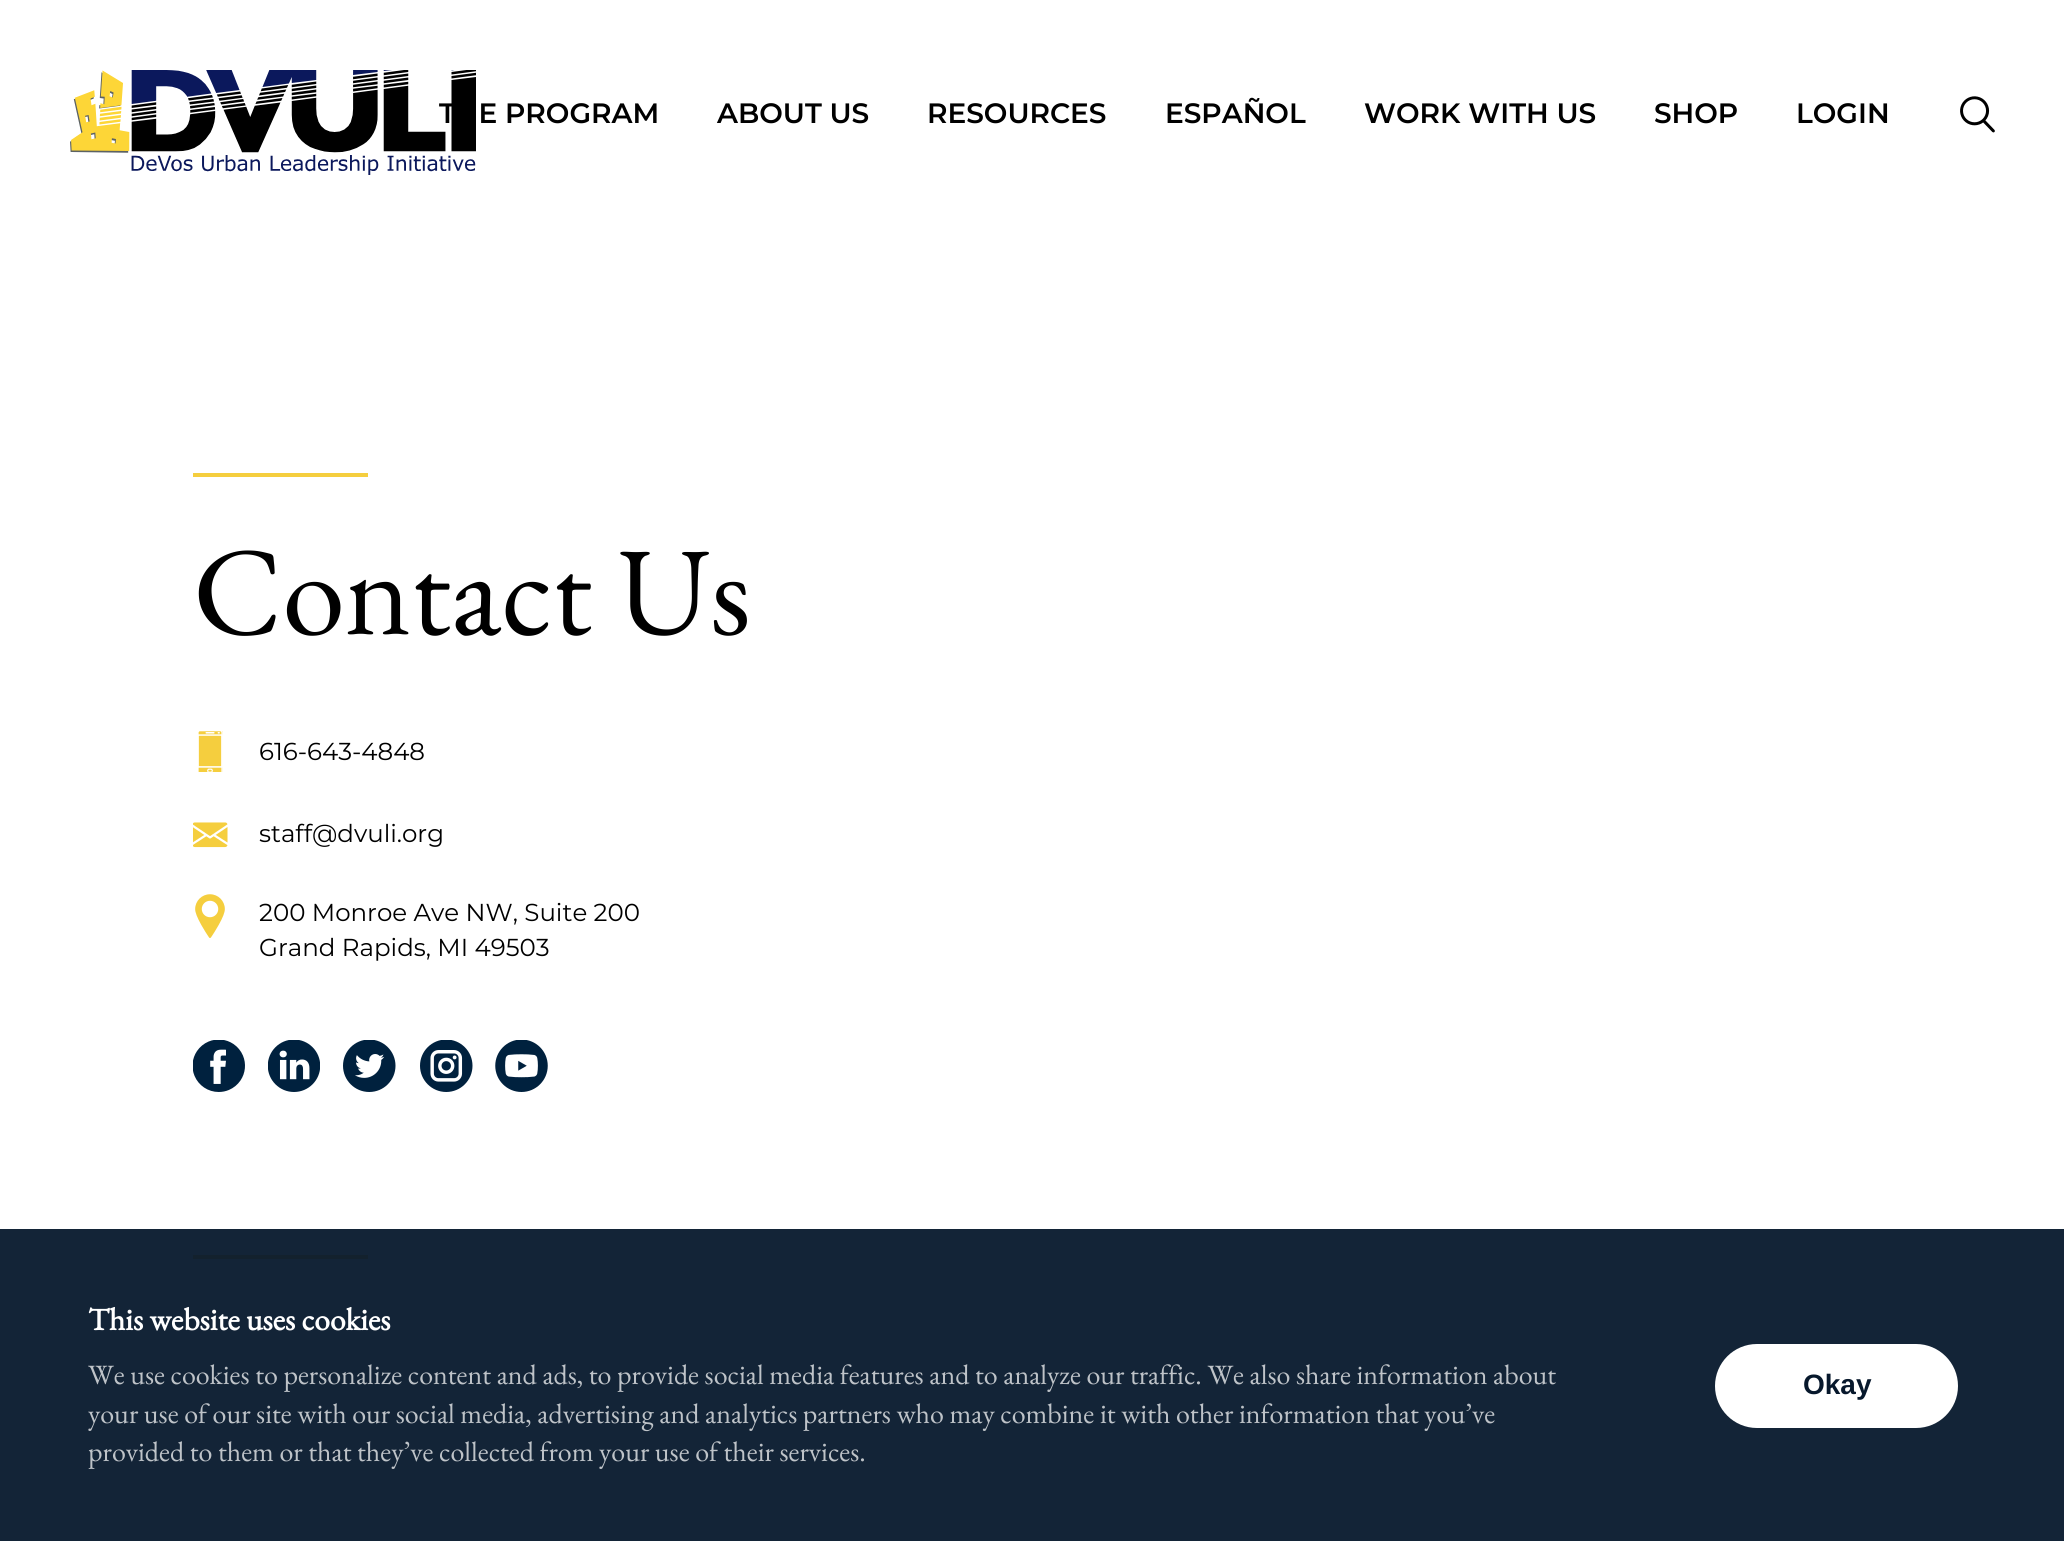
#include <cairo/cairo.h>
#include <math.h>
#include <stddef.h>

typedef struct { double x, y; const char *s; } line_t;
static cairo_t *cr;

static void rgb(unsigned color)
{
	cairo_set_source_rgb(cr, (color >> 16) / 255.0, (color >> 8 & 255) / 255.0, (color & 255) / 255.0);
}

static void rrect(double x, double y, double w, double h, double r)
{
	cairo_new_sub_path(cr);
	cairo_arc(cr, x + w - r, y + h - r, r, 0, M_PI / 2);
	cairo_arc(cr, x + r, y + h - r, r, M_PI / 2, M_PI);
	cairo_arc(cr, x + r, y + r, r, M_PI, 1.5 * M_PI);
	cairo_arc(cr, x + w - r, y + r, r, 1.5 * M_PI, 2 * M_PI);
	cairo_close_path(cr);
}

static void image(const char *path, double x, double y, double w, double h)
{
	cairo_surface_t *image = cairo_image_surface_create_from_png(path);
	cairo_save(cr);
	cairo_set_source_surface(cr, image, x, y);
	cairo_rectangle(cr, x, y, w, h);
	cairo_fill(cr);
	cairo_restore(cr);
	cairo_surface_destroy(image);
}

int main(void) {
	cairo_surface_t *surface = cairo_image_surface_create(CAIRO_FORMAT_RGB24, 2064, 1541);
	cr = cairo_create(surface);
	cairo_font_options_t *options = cairo_font_options_create();
	cairo_font_options_set_hint_metrics(options, CAIRO_HINT_METRICS_OFF);
	cairo_font_options_set_hint_style(options, CAIRO_HINT_STYLE_NONE);
	cairo_set_font_options(cr, options);
	cairo_set_miter_limit(cr, 4);
	rgb(0xffffff);
	cairo_paint(cr);
	image("img/1.png", 70, 70, 406, 105);
	image("img/2.png", 1960, 96, 35, 37);
	rgb(0xf5ce3e);
	cairo_rectangle(cr, 193, 473, 175, 4);
	cairo_fill(cr);
	image("img/3.png", 198, 731, 25, 41);
	image("img/4.png", 193, 822, 35, 26);
	image("img/5.png", 195, 894, 30, 44);
	image("img/6.png", 193, 1040, 52, 52);
	image("img/7.png", 268, 1040, 52, 52);
	image("img/8.png", 343, 1040, 53, 52);
	image("img/9.png", 420, 1040, 53, 52);
	image("img/10.png", 495, 1040, 53, 52);
	rgb(0x132437);
	cairo_rectangle(cr, 0, 1229, 2064, 312);
	cairo_fill(cr);
	rgb(0x13212d);
	cairo_rectangle(cr, 193, 1255, 175, 4);
	cairo_fill(cr);
	rgb(0xffffff);
	rrect(1715, 1344, 243, 84, 42);
	cairo_fill(cr);
	cairo_select_font_face(cr, "Montserrat SemiBold", CAIRO_FONT_SLANT_NORMAL, CAIRO_FONT_WEIGHT_NORMAL);
	cairo_set_font_size(cr, 28);
	rgb(0x000000);
	{
		static const line_t items[] = {
			{439, 123, "THE PROGRAM"},
			{717, 123, "ABOUT US"},
			{927, 123, "RESOURCES"},
			{1165, 123, "ESPAÑOL"},
			{1364, 123, "WORK WITH US"},
			{1654, 123, "SHOP"},
			{1796, 123, "LOGIN"},
		};
		for (size_t i = 0; i < sizeof items / sizeof *items; i++) {
			cairo_move_to(cr, items[i].x, items[i].y);
			cairo_show_text(cr, items[i].s);
		}
	}
	cairo_select_font_face(cr, "EB Garamond", CAIRO_FONT_SLANT_NORMAL, CAIRO_FONT_WEIGHT_NORMAL);
	cairo_set_font_size(cr, 126);
	cairo_move_to(cr, 193, 634);
	cairo_show_text(cr, "Contact Us");
	cairo_select_font_face(cr, "Montserrat", CAIRO_FONT_SLANT_NORMAL, CAIRO_FONT_WEIGHT_NORMAL);
	cairo_set_font_size(cr, 24.5);
	{
		static const line_t items[] = {
			{259, 760, "616-643-4848"},
			{259, 842, "staff@dvuli.org"},
			{259, 921, "200 Monroe Ave NW, Suite 200"},
			{259, 956, "Grand Rapids, MI 49503"},
		};
		for (size_t i = 0; i < sizeof items / sizeof *items; i++) {
			cairo_move_to(cr, items[i].x, items[i].y);
			cairo_show_text(cr, items[i].s);
		}
	}
	cairo_select_font_face(cr, "EB Garamond", CAIRO_FONT_SLANT_NORMAL, CAIRO_FONT_WEIGHT_BOLD);
	cairo_set_font_size(cr, 31.5);
	rgb(0xffffff);
	cairo_move_to(cr, 88, 1330);
	cairo_show_text(cr, "This website uses cookies");
	cairo_select_font_face(cr, "EB Garamond", CAIRO_FONT_SLANT_NORMAL, CAIRO_FONT_WEIGHT_NORMAL);
	cairo_set_font_size(cr, 28);
	rgb(0xbec3c8);
	{
		static const line_t items[] = {
			{88, 1384, "We use cookies to personalize content and ads, to provide social media features and to analyze our traffic. We also share information about"},
			{88, 1423, "your use of our site with our social media, advertising and analytics partners who may combine it with other information that you’ve"},
			{88, 1461, "provided to them or that they’ve collected from your use of their services."},
		};
		for (size_t i = 0; i < sizeof items / sizeof *items; i++) {
			cairo_move_to(cr, items[i].x, items[i].y);
			cairo_show_text(cr, items[i].s);
		}
	}
	cairo_select_font_face(cr, "Liberation Sans", CAIRO_FONT_SLANT_NORMAL, CAIRO_FONT_WEIGHT_BOLD);
	rgb(0x07182c);
	cairo_move_to(cr, 1803, 1394);
	cairo_show_text(cr, "Okay");
	cairo_surface_write_to_png(surface, "page.png");
	cairo_font_options_destroy(options);
	cairo_destroy(cr);
	cairo_surface_destroy(surface);
	return 0;
}
